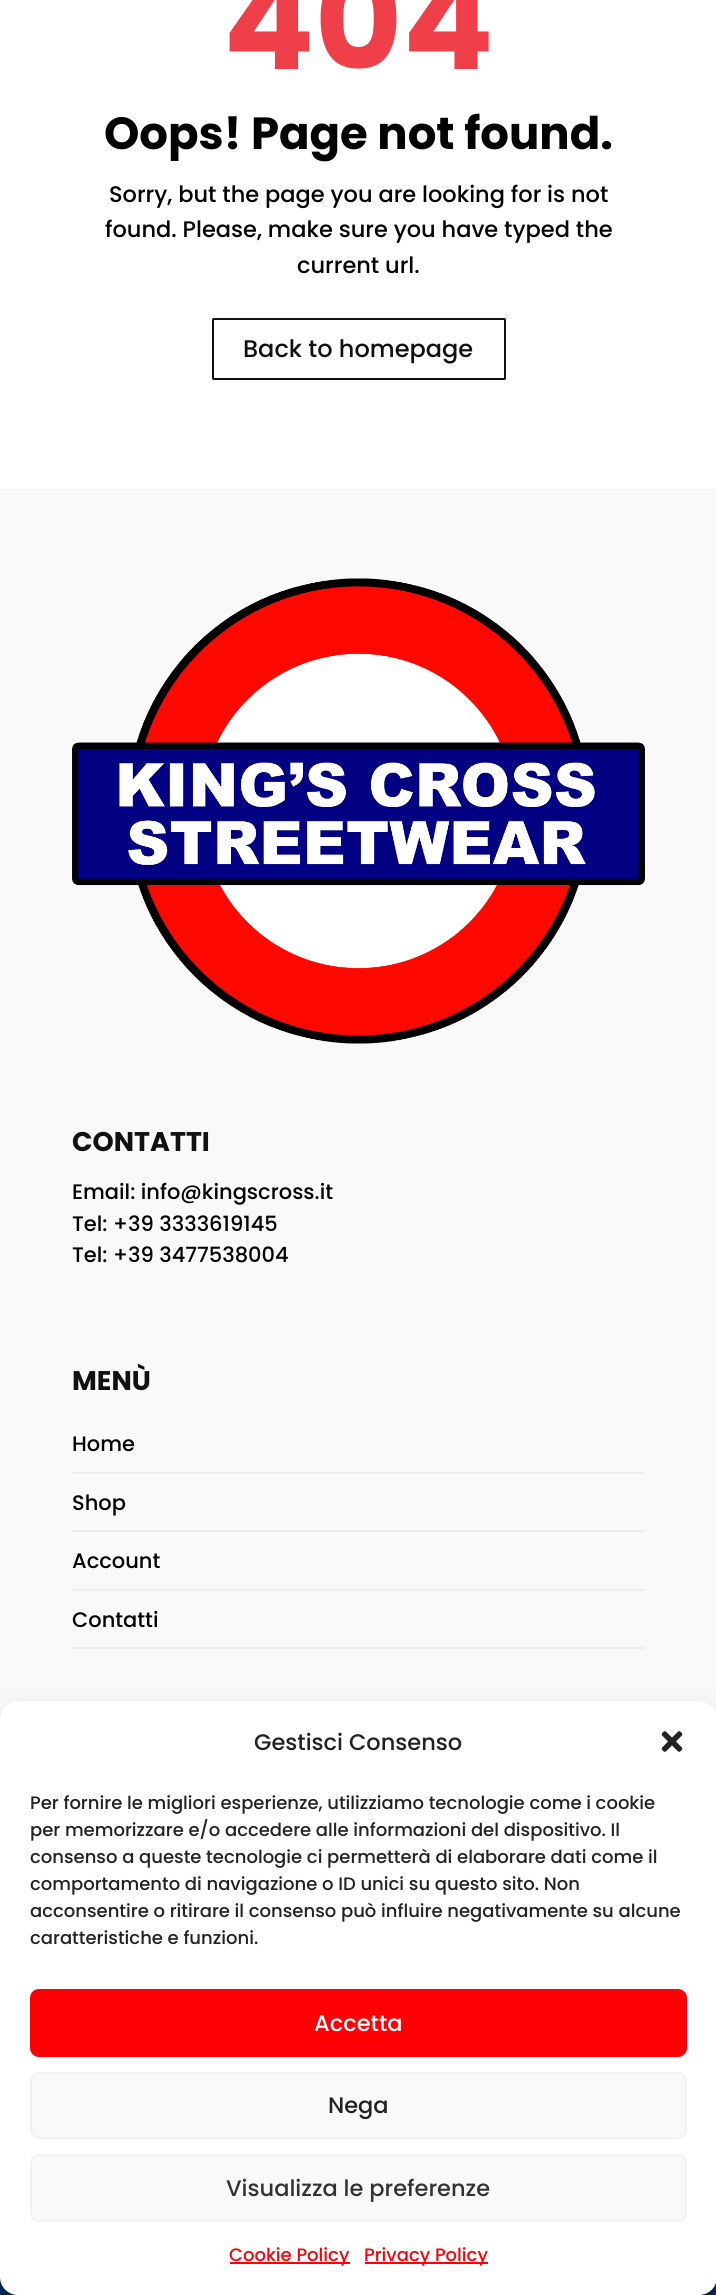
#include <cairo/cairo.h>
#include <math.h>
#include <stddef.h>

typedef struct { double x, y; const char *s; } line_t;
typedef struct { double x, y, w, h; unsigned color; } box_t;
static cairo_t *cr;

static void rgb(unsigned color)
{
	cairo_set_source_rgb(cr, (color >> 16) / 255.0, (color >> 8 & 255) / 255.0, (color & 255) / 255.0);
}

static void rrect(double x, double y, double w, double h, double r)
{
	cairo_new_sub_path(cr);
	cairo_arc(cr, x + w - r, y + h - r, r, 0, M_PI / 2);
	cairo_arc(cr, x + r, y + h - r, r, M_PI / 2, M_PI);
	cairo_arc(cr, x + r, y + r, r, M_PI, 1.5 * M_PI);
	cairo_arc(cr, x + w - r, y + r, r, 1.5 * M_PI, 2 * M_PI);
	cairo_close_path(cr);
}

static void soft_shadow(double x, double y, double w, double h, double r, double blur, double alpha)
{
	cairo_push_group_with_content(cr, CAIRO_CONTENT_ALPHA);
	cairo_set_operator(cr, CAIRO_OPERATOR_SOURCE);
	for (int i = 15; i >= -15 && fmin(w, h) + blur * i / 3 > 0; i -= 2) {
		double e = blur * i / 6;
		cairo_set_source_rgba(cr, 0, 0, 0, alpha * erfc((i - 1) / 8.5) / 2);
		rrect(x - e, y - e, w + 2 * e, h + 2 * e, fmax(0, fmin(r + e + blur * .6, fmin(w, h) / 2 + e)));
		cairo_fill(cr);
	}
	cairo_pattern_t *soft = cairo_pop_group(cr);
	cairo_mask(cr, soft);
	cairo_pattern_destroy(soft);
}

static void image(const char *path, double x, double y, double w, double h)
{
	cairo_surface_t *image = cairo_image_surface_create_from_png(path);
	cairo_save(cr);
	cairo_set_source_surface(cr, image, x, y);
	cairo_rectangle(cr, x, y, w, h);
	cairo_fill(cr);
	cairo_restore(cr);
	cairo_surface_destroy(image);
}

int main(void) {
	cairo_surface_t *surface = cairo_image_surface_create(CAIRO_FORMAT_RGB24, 716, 2295);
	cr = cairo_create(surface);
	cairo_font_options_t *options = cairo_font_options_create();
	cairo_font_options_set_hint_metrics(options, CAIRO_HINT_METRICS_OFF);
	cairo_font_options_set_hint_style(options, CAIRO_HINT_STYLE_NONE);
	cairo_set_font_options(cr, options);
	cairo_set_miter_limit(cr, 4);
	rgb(0xffffff);
	cairo_paint(cr);
	rrect(213, 319, 292, 60, 0.5);
	rgb(0x111111);
	cairo_stroke(cr);
	rgb(0xf9f9f9);
	cairo_rectangle(cr, 0, 489, 716, 1230);
	cairo_fill(cr);
	image("img/1.png", 72, 578, 573, 466);
	{
		static const box_t items[] = {
			{72, 1472, 573, 2, 0xededed},
			{72, 1530, 573, 2, 0xededed},
			{72, 1589, 573, 2, 0xededed},
			{72, 1647, 573, 2, 0xededed},
			{0, 2277, 716, 18, 0x02316b},
		};
		for (size_t i = 0; i < sizeof items / sizeof *items; i++) {
			rgb(items[i].color);
			cairo_rectangle(cr, items[i].x, items[i].y, items[i].w, items[i].h);
			cairo_fill(cr);
		}
	}
	rgb(0x000000);
	soft_shadow(0, 1710, 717, 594, 18, 4.5, 0.23);
	soft_shadow(0, 1716, 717, 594, 18, 15, 0.19);
	rgb(0xffffff);
	rrect(0, 1701, 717, 594, 18);
	cairo_fill(cr);
	image("img/2.png", 661, 1731, 22, 21);
	rgb(0xff0005);
	rrect(31, 1990, 655, 66, 8);
	cairo_fill_preserve(cr);
	cairo_stroke(cr);
	rgb(0xf9f9f9);
	rrect(31, 2073, 655, 65, 8);
	cairo_fill_preserve(cr);
	rgb(0xf2f2f2);
	cairo_stroke(cr);
	rgb(0xf9f9f9);
	rrect(31, 2155, 655, 66, 8);
	cairo_fill_preserve(cr);
	rgb(0xf2f2f2);
	cairo_stroke(cr);
	rgb(0xff0005);
	cairo_rectangle(cr, 230, 2262, 120, 2);
	cairo_fill(cr);
	cairo_rectangle(cr, 365, 2262, 123, 2);
	cairo_fill(cr);
	cairo_select_font_face(cr, "Poppins", CAIRO_FONT_SLANT_NORMAL, CAIRO_FONT_WEIGHT_BOLD);
	cairo_set_font_size(cr, 135);
	rgb(0xef3f49);
	cairo_move_to(cr, 223, 69);
	cairo_show_text(cr, "404");
	cairo_set_font_size(cr, 45);
	rgb(0x000000);
	cairo_move_to(cr, 104, 149);
	cairo_show_text(cr, "Oops! Page not found.");
	cairo_select_font_face(cr, "Poppins Medium", CAIRO_FONT_SLANT_NORMAL, CAIRO_FONT_WEIGHT_NORMAL);
	cairo_set_font_size(cr, 22.5);
	{
		static const line_t items[] = {
			{109, 202, "Sorry, but the page you are looking for is not"},
			{105, 237, "found. Please, make sure you have typed the"},
			{297, 273, "current url."},
		};
		for (size_t i = 0; i < sizeof items / sizeof *items; i++) {
			cairo_move_to(cr, items[i].x, items[i].y);
			cairo_show_text(cr, items[i].s);
		}
	}
	cairo_set_font_size(cr, 24);
	rgb(0x111111);
	cairo_move_to(cr, 243, 357);
	cairo_show_text(cr, "Back to homepage");
	cairo_select_font_face(cr, "Poppins", CAIRO_FONT_SLANT_NORMAL, CAIRO_FONT_WEIGHT_BOLD);
	cairo_set_font_size(cr, 27);
	cairo_move_to(cr, 72, 1151);
	cairo_show_text(cr, "CONTATTI");
	cairo_select_font_face(cr, "Poppins Medium", CAIRO_FONT_SLANT_NORMAL, CAIRO_FONT_WEIGHT_NORMAL);
	cairo_set_font_size(cr, 21);
	rgb(0x000000);
	{
		static const line_t items[] = {
			{72, 1199, "Email: info@kingscross.it"},
			{72, 1231, "Tel: +39 3333619145"},
			{72, 1262, "Tel: +39 3477538004"},
		};
		for (size_t i = 0; i < sizeof items / sizeof *items; i++) {
			cairo_move_to(cr, items[i].x, items[i].y);
			cairo_show_text(cr, items[i].s);
		}
	}
	cairo_select_font_face(cr, "Poppins", CAIRO_FONT_SLANT_NORMAL, CAIRO_FONT_WEIGHT_BOLD);
	cairo_set_font_size(cr, 27);
	rgb(0x111111);
	cairo_move_to(cr, 72, 1390);
	cairo_show_text(cr, "MENÙ");
	cairo_select_font_face(cr, "Poppins Medium", CAIRO_FONT_SLANT_NORMAL, CAIRO_FONT_WEIGHT_NORMAL);
	cairo_set_font_size(cr, 21);
	rgb(0x000000);
	{
		static const line_t items[] = {
			{72, 1451, "Home"},
			{72, 1510, "Shop"},
			{72, 1568, "Account"},
			{72, 1627, "Contatti"},
		};
		for (size_t i = 0; i < sizeof items / sizeof *items; i++) {
			cairo_move_to(cr, items[i].x, items[i].y);
			cairo_show_text(cr, items[i].s);
		}
	}
	cairo_set_font_size(cr, 22.5);
	rgb(0x222222);
	cairo_move_to(cr, 254, 1750);
	cairo_show_text(cr, "Gestisci Consenso");
	cairo_set_font_size(cr, 18);
	{
		static const line_t items[] = {
			{30, 1809, "Per fornire le migliori esperienze, utilizziamo tecnologie come i cookie"},
			{30, 1836, "per memorizzare e/o accedere alle informazioni del dispositivo. Il"},
			{30, 1863, "consenso a queste tecnologie ci permetterà di elaborare dati come il"},
			{30, 1890, "comportamento di navigazione o ID unici su questo sito. Non"},
			{30, 1917, "acconsentire o ritirare il consenso può influire negativamente su alcune"},
			{30, 1944, "caratteristiche e funzioni."},
		};
		for (size_t i = 0; i < sizeof items / sizeof *items; i++) {
			cairo_move_to(cr, items[i].x, items[i].y);
			cairo_show_text(cr, items[i].s);
		}
	}
	cairo_set_font_size(cr, 22.5);
	rgb(0xffffff);
	cairo_move_to(cr, 314, 2031);
	cairo_show_text(cr, "Accetta");
	rgb(0x222222);
	cairo_move_to(cr, 328, 2113);
	cairo_show_text(cr, "Nega");
	rgb(0x333333);
	cairo_move_to(cr, 226, 2196);
	cairo_show_text(cr, "Visualizza le preferenze");
	cairo_set_font_size(cr, 18);
	rgb(0xff0005);
	cairo_move_to(cr, 229, 2261);
	cairo_show_text(cr, "Cookie Policy");
	cairo_move_to(cr, 364, 2261);
	cairo_show_text(cr, "Privacy Policy");
	cairo_surface_write_to_png(surface, "page.png");
	cairo_font_options_destroy(options);
	cairo_destroy(cr);
	cairo_surface_destroy(surface);
	return 0;
}
